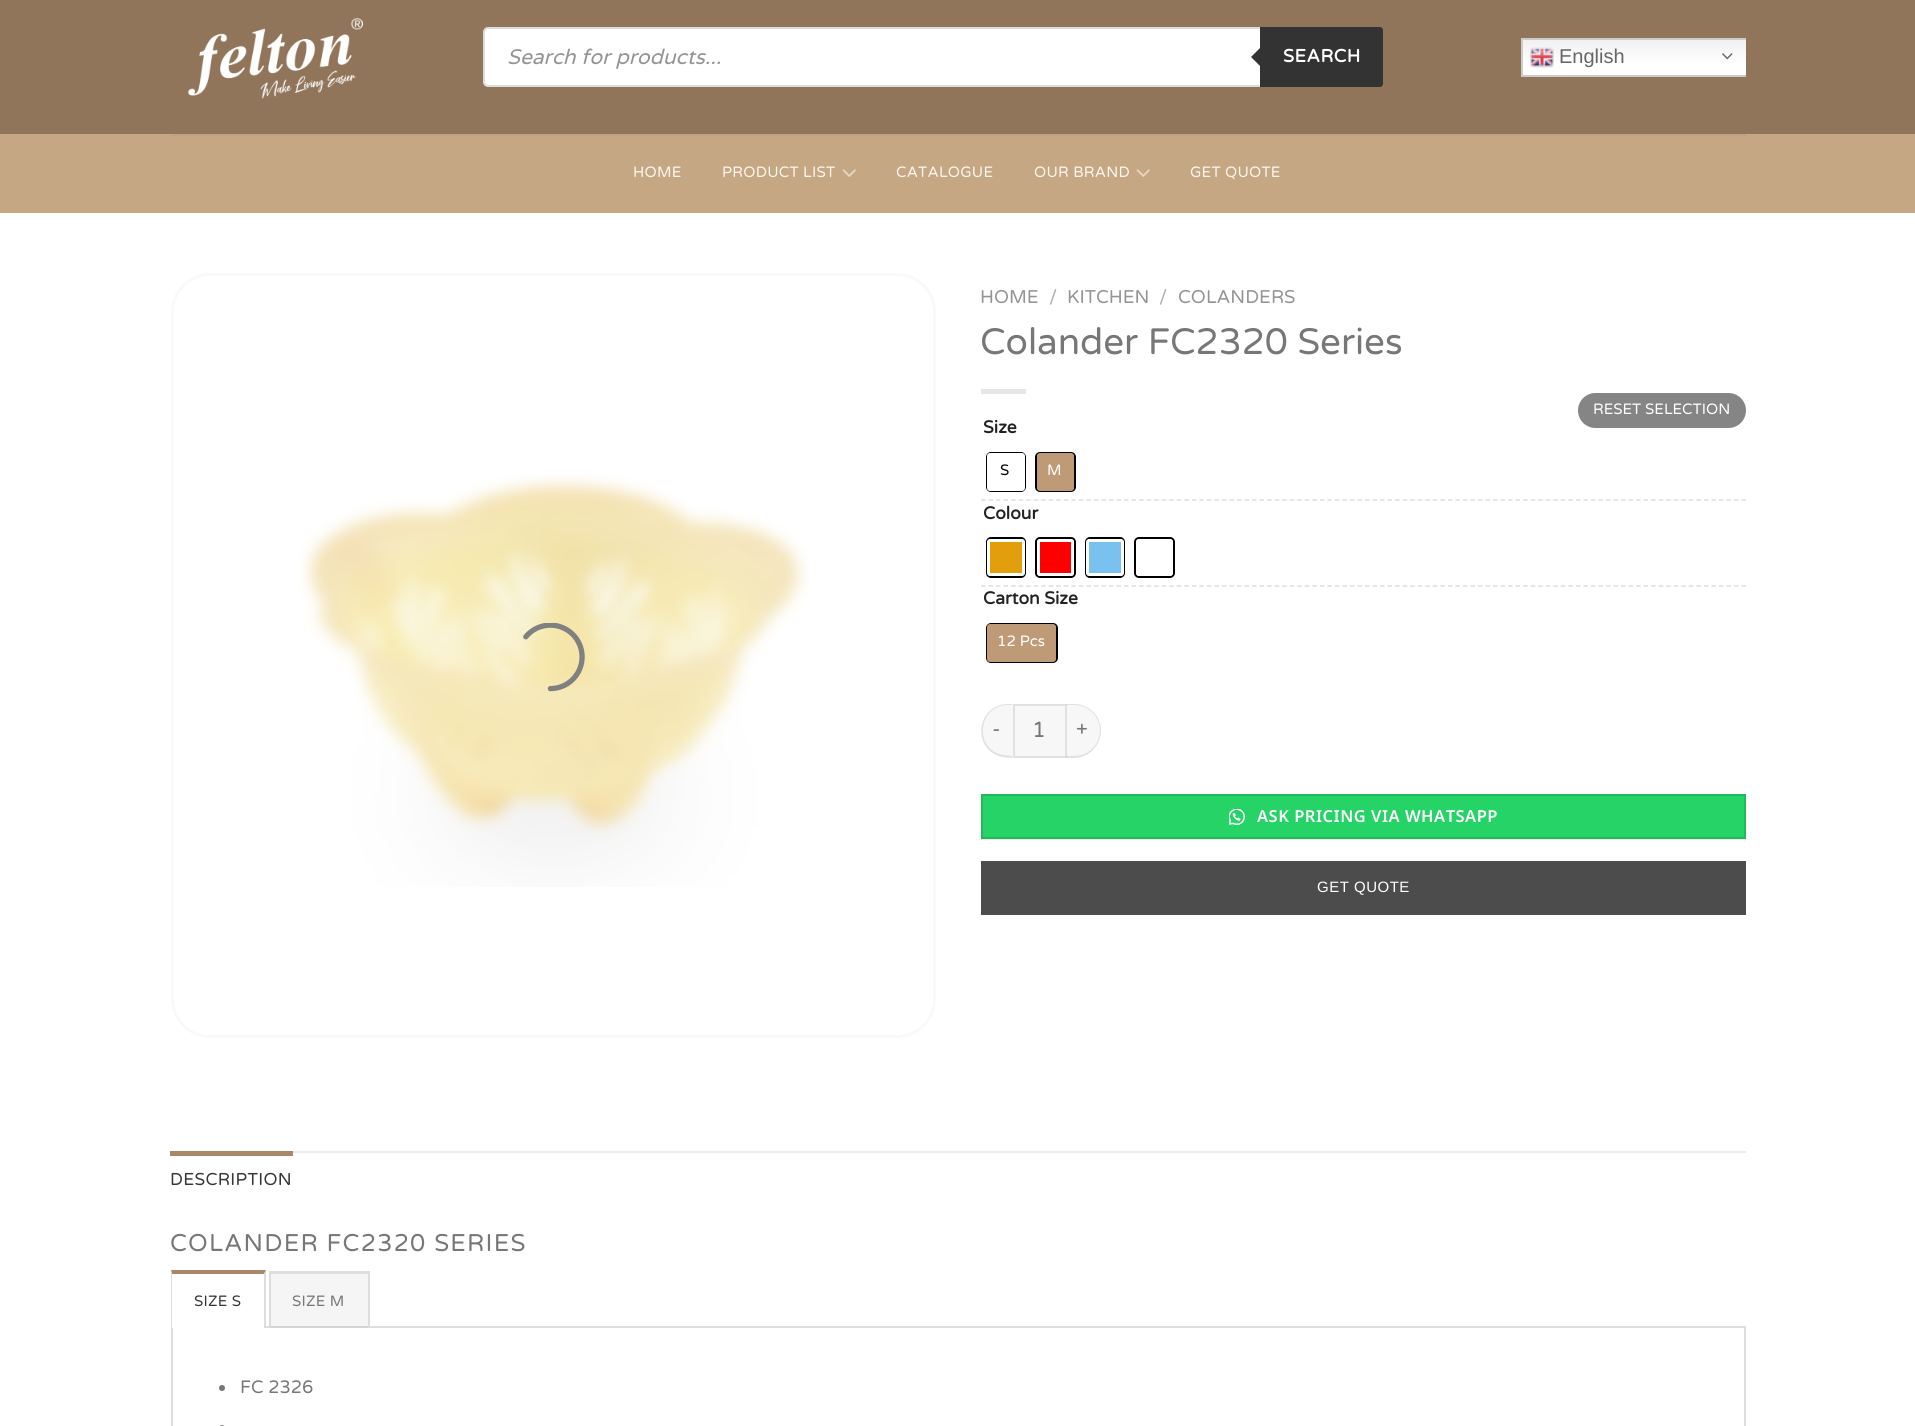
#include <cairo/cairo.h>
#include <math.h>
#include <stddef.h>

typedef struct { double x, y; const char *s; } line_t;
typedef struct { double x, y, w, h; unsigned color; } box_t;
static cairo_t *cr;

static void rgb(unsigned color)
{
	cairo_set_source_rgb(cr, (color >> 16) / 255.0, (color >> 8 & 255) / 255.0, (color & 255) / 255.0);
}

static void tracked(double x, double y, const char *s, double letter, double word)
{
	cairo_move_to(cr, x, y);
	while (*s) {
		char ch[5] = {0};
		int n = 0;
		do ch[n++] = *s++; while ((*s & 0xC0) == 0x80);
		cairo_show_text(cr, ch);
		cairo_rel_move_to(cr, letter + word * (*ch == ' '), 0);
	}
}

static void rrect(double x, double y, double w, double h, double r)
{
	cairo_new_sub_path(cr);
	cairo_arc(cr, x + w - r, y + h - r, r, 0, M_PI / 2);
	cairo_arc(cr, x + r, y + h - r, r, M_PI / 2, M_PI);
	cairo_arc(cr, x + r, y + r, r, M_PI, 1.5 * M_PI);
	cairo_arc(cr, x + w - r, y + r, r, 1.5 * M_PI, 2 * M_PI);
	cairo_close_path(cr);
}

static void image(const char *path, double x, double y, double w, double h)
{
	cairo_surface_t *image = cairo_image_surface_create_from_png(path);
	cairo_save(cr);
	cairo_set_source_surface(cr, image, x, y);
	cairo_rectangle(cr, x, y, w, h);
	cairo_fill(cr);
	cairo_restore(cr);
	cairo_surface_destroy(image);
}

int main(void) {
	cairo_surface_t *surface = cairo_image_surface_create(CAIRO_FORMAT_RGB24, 1915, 1426);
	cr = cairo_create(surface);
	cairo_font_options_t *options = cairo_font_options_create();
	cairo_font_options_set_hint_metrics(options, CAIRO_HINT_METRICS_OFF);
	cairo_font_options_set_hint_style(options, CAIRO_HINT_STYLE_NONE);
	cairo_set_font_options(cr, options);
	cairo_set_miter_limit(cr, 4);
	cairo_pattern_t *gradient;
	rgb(0xffffff);
	cairo_paint(cr);
	rgb(0x91755a);
	cairo_rectangle(cr, 0, 0, 1915, 134);
	cairo_fill(cr);
	image("img/1.png", 188, 18, 176, 81);
	rgb(0xffffff);
	rrect(484, 28, 898, 58, 4);
	cairo_fill_preserve(cr);
	rgb(0xdddddd);
	cairo_stroke(cr);
	rgb(0x333333);
	cairo_new_path(cr);
	cairo_move_to(cr, 1260, 27);
	cairo_line_to(cr, 1380, 27);
	cairo_curve_to(cr, 1381.5, 27, 1383, 28.5, 1383, 30);
	cairo_line_to(cr, 1383, 84);
	cairo_curve_to(cr, 1383, 85.5, 1381.5, 87, 1380, 87);
	cairo_line_to(cr, 1260, 87);
	cairo_close_path(cr);
	cairo_fill(cr);
	cairo_new_path(cr);
	cairo_move_to(cr, 1263, 45);
	cairo_line_to(cr, 1263, 69);
	cairo_line_to(cr, 1251, 57);
	cairo_close_path(cr);
	cairo_fill(cr);
	gradient = cairo_pattern_create_linear(1634, 37, 1634, 77);
	cairo_pattern_add_color_stop_rgba(gradient, 0, 0.937, 0.937, 0.937, 1);
	cairo_pattern_add_color_stop_rgba(gradient, 0.7, 1, 1, 1, 1);
	cairo_set_source(cr, gradient);
	cairo_pattern_destroy(gradient);
	cairo_rectangle(cr, 1523, 40, 223, 35);
	cairo_fill(cr);
	cairo_save(cr);
	cairo_rectangle(cr, 1521, 38, 225, 39);
	cairo_clip(cr);
	cairo_rectangle(cr, 1522, 39, 243, 37);
	rgb(0xcccccc);
	cairo_stroke(cr);
	cairo_restore(cr);
	image("img/2.png", 1530, 47, 24, 21);
	image("img/3.png", 1722, 53, 11, 7);
	rgb(0xc6a783);
	cairo_rectangle(cr, 0, 134, 1915, 79);
	cairo_fill(cr);
	rgb(0xbea282);
	cairo_rectangle(cr, 171, 134, 1575, 2);
	cairo_fill(cr);
	image("img/4.png", 842, 169, 14, 8);
	image("img/4.png", 1136, 169, 14, 8);
	rrect(172.5, 274.5, 762, 762, 37.5);
	rgb(0xf9f9f9);
	cairo_set_line_width(cr, 3);
	cairo_stroke(cr);
	image("img/5.png", 300, 474, 509, 413);
	image("img/6.png", 523, 623, 62, 69);
	rgb(0xe6e6e6);
	cairo_rectangle(cr, 981, 389, 45, 5);
	cairo_fill(cr);
	cairo_new_path(cr);
	cairo_move_to(cr, 981, 586);
	cairo_line_to(cr, 1746, 586);
	rgb(0xdddddd);
	cairo_set_line_width(cr, 1.5);
	cairo_set_dash(cr, (double[]){4.5, 3.03}, 2, 0);
	cairo_stroke(cr);
	rgb(0x858585);
	rrect(1578, 393, 168, 35, 17.5);
	cairo_fill(cr);
	rrect(987, 624, 70, 38, 4);
	rgb(0x000000);
	cairo_set_line_width(cr, 2);
	cairo_set_dash(cr, NULL, 0, 0);
	cairo_stroke(cr);
	rgb(0xbf9a76);
	rrect(987, 624, 69, 38, 3);
	cairo_fill(cr);
	rrect(987, 453, 38, 38, 4);
	rgb(0x000000);
	cairo_stroke(cr);
	rgb(0xffffff);
	rrect(987, 453, 38, 38, 3);
	cairo_fill(cr);
	rrect(1036, 453, 39, 38, 4);
	rgb(0x000000);
	cairo_stroke(cr);
	rgb(0xbf9a76);
	rrect(1037, 453, 37, 38, 3);
	cairo_fill(cr);
	cairo_new_path(cr);
	cairo_move_to(cr, 981, 500);
	cairo_line_to(cr, 1746, 500);
	rgb(0xdddddd);
	cairo_set_line_width(cr, 1.5);
	cairo_set_dash(cr, (double[]){4.5, 3.03}, 2, 0);
	cairo_stroke(cr);
	rrect(987, 538, 38, 39, 4);
	rgb(0x000000);
	cairo_set_line_width(cr, 2);
	cairo_set_dash(cr, NULL, 0, 0);
	cairo_stroke(cr);
	rgb(0xffffff);
	rrect(987, 539, 38, 37, 3);
	cairo_fill(cr);
	rgb(0xe29e0d);
	cairo_rectangle(cr, 990, 542, 32, 31);
	cairo_fill(cr);
	rrect(1036, 538, 39, 39, 4);
	rgb(0x000000);
	cairo_stroke(cr);
	rgb(0xffffff);
	rrect(1037, 539, 37, 37, 3);
	cairo_fill(cr);
	rgb(0xff0000);
	cairo_rectangle(cr, 1040, 542, 31, 31);
	cairo_fill(cr);
	rrect(1086, 538, 38, 39, 4);
	rgb(0x000000);
	cairo_stroke(cr);
	rgb(0xffffff);
	rrect(1086, 539, 38, 37, 3);
	cairo_fill(cr);
	rgb(0x79c2f0);
	cairo_rectangle(cr, 1089, 542, 32, 31);
	cairo_fill(cr);
	rrect(1135, 538, 39, 39, 4);
	rgb(0x000000);
	cairo_stroke(cr);
	rgb(0xffffff);
	rrect(1136, 539, 37, 37, 3);
	cairo_fill(cr);
	rgb(0xf7f7f7);
	cairo_new_path(cr);
	cairo_move_to(cr, 1008, 704);
	cairo_line_to(cr, 1013, 704);
	cairo_line_to(cr, 1013, 758);
	cairo_line_to(cr, 1008, 758);
	cairo_curve_to(cr, 993, 758, 981, 746, 981, 731);
	cairo_curve_to(cr, 981, 716, 993, 704, 1008, 704);
	cairo_close_path(cr);
	cairo_fill(cr);
	cairo_set_source_rgba(cr, 0, 0, 0, 0.09);
	cairo_set_fill_rule(cr, CAIRO_FILL_RULE_EVEN_ODD);
	cairo_new_path(cr);
	cairo_move_to(cr, 1008, 704);
	cairo_line_to(cr, 1012, 704);
	cairo_line_to(cr, 1012, 758);
	cairo_line_to(cr, 1003, 757);
	cairo_curve_to(cr, 971, 751, 976, 704, 1008, 704);
	cairo_close_path(cr);
	cairo_move_to(cr, 1008, 705);
	cairo_line_to(cr, 1012, 705);
	cairo_line_to(cr, 1012, 756);
	cairo_line_to(cr, 1003, 755);
	cairo_curve_to(cr, 973, 749, 978, 705, 1008, 705);
	cairo_close_path(cr);
	cairo_fill(cr);
	rgb(0xf7f7f7);
	cairo_rectangle(cr, 1014, 705, 52, 52);
	cairo_fill_preserve(cr);
	rgb(0xe1e1e1);
	cairo_stroke(cr);
	rgb(0xf7f7f7);
	cairo_new_path(cr);
	cairo_move_to(cr, 1067, 704);
	cairo_line_to(cr, 1074, 704);
	cairo_curve_to(cr, 1089, 704, 1101, 716, 1101, 731);
	cairo_curve_to(cr, 1101, 746, 1089, 758, 1074, 758);
	cairo_line_to(cr, 1067, 758);
	cairo_close_path(cr);
	cairo_fill(cr);
	cairo_set_source_rgba(cr, 0, 0, 0, 0.09);
	cairo_new_path(cr);
	cairo_move_to(cr, 1066, 704);
	cairo_line_to(cr, 1074, 704);
	cairo_curve_to(cr, 1089, 704, 1101, 716, 1101, 730);
	cairo_curve_to(cr, 1101, 745, 1089, 758, 1074, 758);
	cairo_line_to(cr, 1066, 758);
	cairo_close_path(cr);
	cairo_move_to(cr, 1066, 705);
	cairo_line_to(cr, 1074, 705);
	cairo_curve_to(cr, 1088, 705, 1100, 716, 1100, 730);
	cairo_curve_to(cr, 1100, 745, 1088, 756, 1074, 756);
	cairo_line_to(cr, 1066, 756);
	cairo_close_path(cr);
	cairo_fill(cr);
	rgb(0xe8e9e9);
	cairo_rectangle(cr, 981, 839, 765, 1);
	cairo_fill(cr);
	rgb(0x25d366);
	cairo_rectangle(cr, 982, 795, 763, 43);
	cairo_fill_preserve(cr);
	rgb(0x24b85c);
	cairo_stroke(cr);
	image("img/7.png", 1229, 809, 16, 16);
	{
		static const box_t items[] = {
			{981, 861, 765, 54, 0x4c4c4c},
			{293, 1151, 1453, 2, 0xececec},
			{170, 1151, 123, 5, 0xa88868},
		};
		for (size_t i = 0; i < sizeof items / sizeof *items; i++) {
			rgb(items[i].color);
			cairo_rectangle(cr, items[i].x, items[i].y, items[i].w, items[i].h);
			cairo_fill(cr);
		}
	}
	cairo_rectangle(cr, 172, 1327, 1573, 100);
	rgb(0xdddddd);
	cairo_stroke(cr);
	rgb(0xffffff);
	cairo_rectangle(cr, 171, 1326, 95, 2);
	cairo_fill(cr);
	rgb(0xa88868);
	cairo_set_fill_rule(cr, CAIRO_FILL_RULE_WINDING);
	cairo_new_path(cr);
	cairo_move_to(cr, 171, 1270);
	cairo_line_to(cr, 266, 1270);
	cairo_line_to(cr, 264, 1274);
	cairo_line_to(cr, 172, 1274);
	cairo_close_path(cr);
	cairo_fill(cr);
	rgb(0xdddddd);
	cairo_new_path(cr);
	cairo_move_to(cr, 266, 1270);
	cairo_line_to(cr, 266, 1328);
	cairo_line_to(cr, 264, 1328);
	cairo_line_to(cr, 264, 1274);
	cairo_close_path(cr);
	cairo_fill(cr);
	cairo_new_path(cr);
	cairo_move_to(cr, 171, 1328);
	cairo_line_to(cr, 171, 1270);
	cairo_line_to(cr, 172, 1274);
	cairo_line_to(cr, 172, 1328);
	cairo_close_path(cr);
	cairo_fill(cr);
	cairo_set_source_rgba(cr, 0, 0, 0, 0.04);
	cairo_rectangle(cr, 271, 1274, 97, 54);
	cairo_fill(cr);
	rgb(0xdddddd);
	cairo_rectangle(cr, 269, 1271, 100, 3);
	cairo_fill(cr);
	cairo_rectangle(cr, 368, 1271, 2, 57);
	cairo_fill(cr);
	cairo_rectangle(cr, 269, 1271, 2, 57);
	cairo_fill(cr);
	rgb(0x777777);
	cairo_arc(cr, 222, 1388, 3, 0, 2 * M_PI);
	cairo_fill(cr);
	rrect(219, 1425, 6, 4, 3);
	cairo_fill(cr);
	cairo_select_font_face(cr, "Varela Round", CAIRO_FONT_SLANT_ITALIC, CAIRO_FONT_WEIGHT_NORMAL);
	cairo_set_font_size(cr, 21);
	rgb(0x949494);
	cairo_move_to(cr, 507, 64);
	cairo_show_text(cr, "Search for products...");
	cairo_select_font_face(cr, "Varela Round", CAIRO_FONT_SLANT_NORMAL, CAIRO_FONT_WEIGHT_BOLD);
	cairo_set_font_size(cr, 18);
	rgb(0xffffff);
	tracked(1283, 62, "SEARCH", 0.5, 0);
	cairo_select_font_face(cr, "Liberation Sans", CAIRO_FONT_SLANT_NORMAL, CAIRO_FONT_WEIGHT_NORMAL);
	cairo_set_font_size(cr, 20);
	rgb(0x666666);
	cairo_move_to(cr, 1559, 63);
	cairo_show_text(cr, "English");
	cairo_select_font_face(cr, "Varela Round", CAIRO_FONT_SLANT_NORMAL, CAIRO_FONT_WEIGHT_NORMAL);
	cairo_set_font_size(cr, 15);
	rgb(0xfbf6ef);
	{
		static const line_t items[] = {
			{633, 177, "HOME"},
			{722, 177, "PRODUCT LIST"},
			{896, 177, "CATALOGUE"},
			{1034, 177, "OUR BRAND"},
			{1190, 177, "GET QUOTE"},
		};
		for (size_t i = 0; i < sizeof items / sizeof *items; i++) {
			tracked(items[i].x, items[i].y, items[i].s, 0.25, 0);
		}
	}
	cairo_set_font_size(cr, 18.5);
	rgb(0x949494);
	cairo_move_to(cr, 980, 303);
	cairo_show_text(cr, "HOME");
	rgb(0xb2b2b2);
	cairo_move_to(cr, 1049, 303);
	cairo_show_text(cr, "/");
	rgb(0x949494);
	cairo_move_to(cr, 1067, 303);
	cairo_show_text(cr, "KITCHEN");
	rgb(0xb2b2b2);
	cairo_move_to(cr, 1159, 303);
	cairo_show_text(cr, "/");
	rgb(0x949494);
	cairo_move_to(cr, 1178, 303);
	cairo_show_text(cr, "COLANDERS");
	cairo_set_font_size(cr, 36.75);
	rgb(0x777777);
	cairo_move_to(cr, 980, 354);
	cairo_show_text(cr, "Colander FC2320 Series");
	cairo_set_font_size(cr, 15);
	rgb(0xffffff);
	cairo_move_to(cr, 1593, 414);
	cairo_show_text(cr, "RESET SELECTION");
	cairo_move_to(cr, 997, 646);
	cairo_show_text(cr, "12 Pcs");
	cairo_select_font_face(cr, "Varela Round", CAIRO_FONT_SLANT_NORMAL, CAIRO_FONT_WEIGHT_BOLD);
	cairo_set_font_size(cr, 17.5);
	rgb(0x222222);
	cairo_move_to(cr, 983, 604);
	cairo_show_text(cr, "Carton Size");
	cairo_move_to(cr, 983, 433);
	cairo_show_text(cr, "Size");
	cairo_select_font_face(cr, "Varela Round", CAIRO_FONT_SLANT_NORMAL, CAIRO_FONT_WEIGHT_NORMAL);
	cairo_set_font_size(cr, 15);
	rgb(0x000000);
	cairo_move_to(cr, 1000, 475);
	cairo_show_text(cr, "S");
	rgb(0xffffff);
	cairo_move_to(cr, 1047, 475);
	cairo_show_text(cr, "M");
	cairo_select_font_face(cr, "Varela Round", CAIRO_FONT_SLANT_NORMAL, CAIRO_FONT_WEIGHT_BOLD);
	cairo_set_font_size(cr, 17.5);
	rgb(0x222222);
	cairo_move_to(cr, 983, 519);
	cairo_show_text(cr, "Colour");
	cairo_select_font_face(cr, "Varela Round", CAIRO_FONT_SLANT_NORMAL, CAIRO_FONT_WEIGHT_NORMAL);
	cairo_set_font_size(cr, 21);
	rgb(0x777777);
	tracked(992, 736, "-", 1, 0);
	cairo_set_font_size(cr, 22);
	cairo_move_to(cr, 1032, 737);
	cairo_show_text(cr, "1");
	cairo_set_font_size(cr, 21);
	tracked(1076, 736, "+", 1, 0);
	cairo_select_font_face(cr, "Noto Sans SemiBold", CAIRO_FONT_SLANT_NORMAL, CAIRO_FONT_WEIGHT_NORMAL);
	cairo_set_font_size(cr, 16.5);
	rgb(0xffffff);
	tracked(1257, 822, "ASK PRICING VIA WHATSAPP", 0.5, 0);
	cairo_select_font_face(cr, "Liberation Sans", CAIRO_FONT_SLANT_NORMAL, CAIRO_FONT_WEIGHT_NORMAL);
	cairo_set_font_size(cr, 15);
	tracked(1317, 892, "GET QUOTE", 0.5, 0);
	cairo_select_font_face(cr, "Varela Round", CAIRO_FONT_SLANT_NORMAL, CAIRO_FONT_WEIGHT_NORMAL);
	cairo_set_font_size(cr, 17.25);
	rgb(0x363636);
	tracked(170, 1185, "DESCRIPTION", 0.3, 0);
	cairo_set_font_size(cr, 24.25);
	rgb(0x777777);
	tracked(170, 1251, "COLANDER FC2320 SERIES", 1.25, 0);
	cairo_set_font_size(cr, 15);
	rgb(0x363636);
	tracked(194, 1306, "SIZE S", 0.25, 0);
	rgb(0x777777);
	tracked(292, 1306, "SIZE M", 0.25, 0);
	cairo_set_font_size(cr, 18);
	cairo_move_to(cr, 240, 1393);
	cairo_show_text(cr, "FC 2326");
	cairo_surface_write_to_png(surface, "page.png");
	cairo_font_options_destroy(options);
	cairo_destroy(cr);
	cairo_surface_destroy(surface);
	return 0;
}
